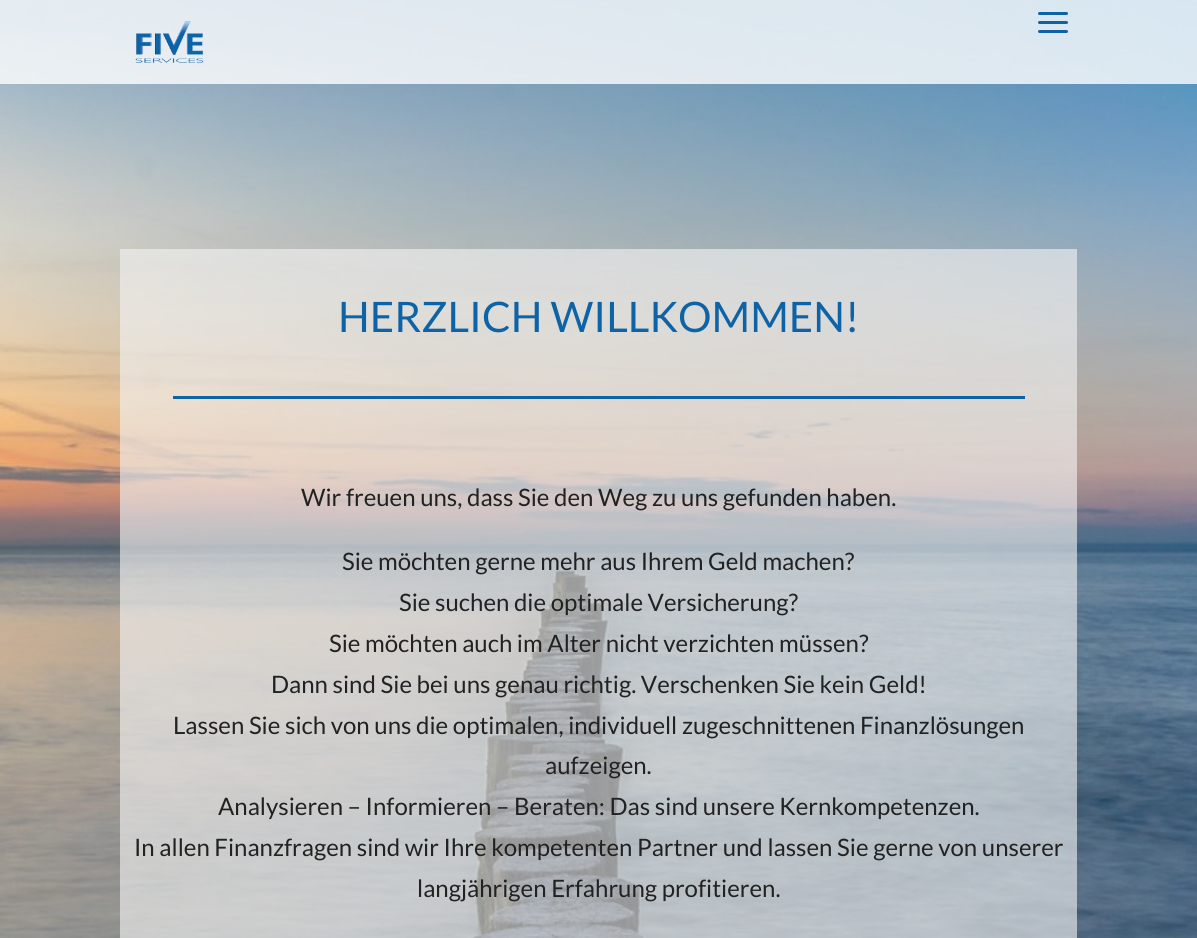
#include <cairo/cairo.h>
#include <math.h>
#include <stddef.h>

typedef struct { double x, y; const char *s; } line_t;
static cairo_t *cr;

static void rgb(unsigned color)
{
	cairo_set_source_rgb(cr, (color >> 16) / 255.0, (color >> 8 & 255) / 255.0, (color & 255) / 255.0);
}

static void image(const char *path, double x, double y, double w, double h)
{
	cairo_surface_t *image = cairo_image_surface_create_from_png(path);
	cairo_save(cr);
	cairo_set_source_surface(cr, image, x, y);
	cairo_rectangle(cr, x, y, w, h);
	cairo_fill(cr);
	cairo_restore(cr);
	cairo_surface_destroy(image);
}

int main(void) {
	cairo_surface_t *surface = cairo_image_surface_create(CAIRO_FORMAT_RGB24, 1197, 938);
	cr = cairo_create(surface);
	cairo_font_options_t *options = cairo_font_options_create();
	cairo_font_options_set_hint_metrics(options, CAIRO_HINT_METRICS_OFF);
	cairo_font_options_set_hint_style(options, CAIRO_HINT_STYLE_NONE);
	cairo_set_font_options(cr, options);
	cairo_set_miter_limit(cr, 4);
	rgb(0xffffff);
	cairo_paint(cr);
	image("img/1.png", 0, 0, 1197, 938);
	cairo_set_source_rgba(cr, 1, 1, 1, 0.79);
	cairo_rectangle(cr, 0, 0, 1197, 84);
	cairo_fill(cr);
	image("img/2.png", 135, 21, 69, 42);
	image("img/3.png", 1038, 12, 30, 21);
	cairo_set_source_rgba(cr, 0.949, 0.949, 0.949, 0.62);
	cairo_rectangle(cr, 120, 249, 957, 689);
	cairo_fill(cr);
	rgb(0x0e63a7);
	cairo_rectangle(cr, 173, 396, 852, 3);
	cairo_fill(cr);
	cairo_select_font_face(cr, "Lato", CAIRO_FONT_SLANT_NORMAL, CAIRO_FONT_WEIGHT_NORMAL);
	cairo_set_font_size(cr, 42);
	cairo_move_to(cr, 338, 332);
	cairo_show_text(cr, "HERZLICH WILLKOMMEN!");
	cairo_set_font_size(cr, 24);
	rgb(0x222222);
	{
		static const line_t items[] = {
			{301, 506, "Wir freuen uns, dass Sie den Weg zu uns gefunden haben."},
			{342, 570, "Sie möchten gerne mehr aus Ihrem Geld machen?"},
			{399, 611, "Sie suchen die optimale Versicherung?"},
			{329, 652, "Sie möchten auch im Alter nicht verzichten müssen?"},
			{271, 693, "Dann sind Sie bei uns genau richtig. Verschenken Sie kein Geld!"},
			{173, 734, "Lassen Sie sich von uns die optimalen, individuell zugeschnittenen Finanzlösungen"},
			{545, 774, "aufzeigen."},
			{218, 815, "Analysieren – Informieren – Beraten: Das sind unsere Kernkompetenzen."},
			{134, 856, "In allen Finanzfragen sind wir Ihre kompetenten Partner und lassen Sie gerne von unserer"},
			{417, 897, "langjährigen Erfahrung profitieren."},
		};
		for (size_t i = 0; i < sizeof items / sizeof *items; i++) {
			cairo_move_to(cr, items[i].x, items[i].y);
			cairo_show_text(cr, items[i].s);
		}
	}
	cairo_surface_write_to_png(surface, "page.png");
	cairo_font_options_destroy(options);
	cairo_destroy(cr);
	cairo_surface_destroy(surface);
	return 0;
}
